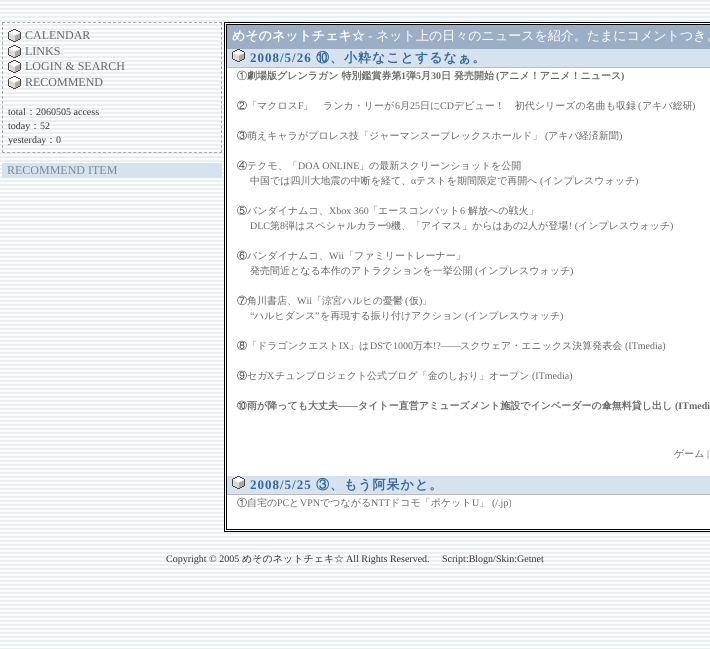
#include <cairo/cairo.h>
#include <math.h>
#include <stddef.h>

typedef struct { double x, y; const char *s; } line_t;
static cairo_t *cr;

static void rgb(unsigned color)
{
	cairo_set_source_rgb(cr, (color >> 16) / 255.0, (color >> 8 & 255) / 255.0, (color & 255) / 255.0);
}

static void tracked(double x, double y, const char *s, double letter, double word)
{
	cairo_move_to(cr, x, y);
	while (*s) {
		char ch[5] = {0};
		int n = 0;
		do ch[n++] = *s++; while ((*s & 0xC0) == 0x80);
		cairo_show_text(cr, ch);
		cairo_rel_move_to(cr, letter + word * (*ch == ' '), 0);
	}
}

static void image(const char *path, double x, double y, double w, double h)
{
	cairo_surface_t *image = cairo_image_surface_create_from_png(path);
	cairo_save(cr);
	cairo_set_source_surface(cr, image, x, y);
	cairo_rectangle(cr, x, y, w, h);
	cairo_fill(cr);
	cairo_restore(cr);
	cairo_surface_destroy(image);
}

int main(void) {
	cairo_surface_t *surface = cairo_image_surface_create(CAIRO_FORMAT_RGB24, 710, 649);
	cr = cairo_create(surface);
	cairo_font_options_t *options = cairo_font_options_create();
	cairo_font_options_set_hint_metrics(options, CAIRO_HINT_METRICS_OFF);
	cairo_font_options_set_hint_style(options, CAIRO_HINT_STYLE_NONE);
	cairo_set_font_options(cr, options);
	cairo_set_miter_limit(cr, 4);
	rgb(0xffffff);
	cairo_paint(cr);
	image("img/1.png", 0, 0, 710, 649);
	cairo_new_path(cr);
	cairo_move_to(cr, 2, 22.5);
	cairo_line_to(cr, 222, 22.5);
	rgb(0xaaaaaa);
	cairo_set_line_width(cr, 1);
	cairo_set_dash(cr, (double[]){3, 2.05}, 2, 0);
	cairo_stroke(cr);
	cairo_new_path(cr);
	cairo_move_to(cr, 221.5, 22);
	cairo_line_to(cr, 221.5, 153);
	cairo_set_dash(cr, (double[]){3, 1.92}, 2, 0);
	cairo_stroke(cr);
	cairo_new_path(cr);
	cairo_move_to(cr, 2, 152.5);
	cairo_line_to(cr, 222, 152.5);
	cairo_set_dash(cr, (double[]){3, 2.05}, 2, 0);
	cairo_stroke(cr);
	cairo_new_path(cr);
	cairo_move_to(cr, 2.5, 22);
	cairo_line_to(cr, 2.5, 153);
	cairo_set_dash(cr, (double[]){3, 1.92}, 2, 0);
	cairo_stroke(cr);
	image("img/2.png", 8, 29, 13, 13);
	image("img/2.png", 8, 45, 13, 13);
	image("img/3.png", 8, 60, 13, 13);
	image("img/3.png", 8, 76, 13, 13);
	rgb(0xd6e3ef);
	cairo_rectangle(cr, 2, 163, 220, 15);
	cairo_fill(cr);
	rgb(0xffffff);
	cairo_rectangle(cr, 225, 24, 485, 506);
	cairo_fill(cr);
	cairo_rectangle(cr, 224.5, 22.5, 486, 509);
	rgb(0x000000);
	cairo_set_dash(cr, NULL, 0, 0);
	cairo_stroke(cr);
	cairo_rectangle(cr, 226.5, 24.5, 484, 505);
	cairo_stroke(cr);
	rgb(0x9caec6);
	cairo_rectangle(cr, 227, 25, 483, 24);
	cairo_fill(cr);
	rgb(0xd6e3ef);
	cairo_rectangle(cr, 227, 49, 483, 18);
	cairo_fill(cr);
	image("img/4.png", 232, 49, 13, 13);
	rgb(0xbbbbbb);
	cairo_rectangle(cr, 227, 67, 483, 1);
	cairo_fill(cr);
	rgb(0xd6e3ef);
	cairo_rectangle(cr, 227, 476, 483, 18);
	cairo_fill(cr);
	image("img/4.png", 232, 476, 13, 13);
	rgb(0xbbbbbb);
	cairo_rectangle(cr, 227, 494, 483, 1);
	cairo_fill(cr);
	cairo_select_font_face(cr, "Liberation Serif", CAIRO_FONT_SLANT_NORMAL, CAIRO_FONT_WEIGHT_NORMAL);
	cairo_set_font_size(cr, 12);
	rgb(0x666666);
	{
		static const line_t items[] = {
			{25, 39, "CALENDAR"},
			{25, 55, "LINKS"},
			{25, 70, "LOGIN & SEARCH"},
			{25, 86, "RECOMMEND"},
		};
		for (size_t i = 0; i < sizeof items / sizeof *items; i++) {
			cairo_move_to(cr, items[i].x, items[i].y);
			cairo_show_text(cr, items[i].s);
		}
	}
	cairo_set_font_size(cr, 10);
	rgb(0x333333);
	cairo_move_to(cr, 8, 115);
	cairo_show_text(cr, "total");
	cairo_select_font_face(cr, "WenQuanYi Zen Hei Medium", CAIRO_FONT_SLANT_NORMAL, CAIRO_FONT_WEIGHT_NORMAL);
	cairo_move_to(cr, 26, 115);
	cairo_show_text(cr, "：");
	cairo_select_font_face(cr, "Liberation Serif", CAIRO_FONT_SLANT_NORMAL, CAIRO_FONT_WEIGHT_NORMAL);
	cairo_move_to(cr, 36, 115);
	cairo_show_text(cr, "2060505 access");
	cairo_move_to(cr, 8, 129);
	cairo_show_text(cr, "today");
	cairo_select_font_face(cr, "WenQuanYi Zen Hei Medium", CAIRO_FONT_SLANT_NORMAL, CAIRO_FONT_WEIGHT_NORMAL);
	cairo_move_to(cr, 30, 129);
	cairo_show_text(cr, "：");
	cairo_select_font_face(cr, "Liberation Serif", CAIRO_FONT_SLANT_NORMAL, CAIRO_FONT_WEIGHT_NORMAL);
	cairo_move_to(cr, 40, 129);
	cairo_show_text(cr, "52");
	cairo_move_to(cr, 8, 143);
	cairo_show_text(cr, "yesterday");
	cairo_select_font_face(cr, "WenQuanYi Zen Hei Medium", CAIRO_FONT_SLANT_NORMAL, CAIRO_FONT_WEIGHT_NORMAL);
	cairo_move_to(cr, 46, 143);
	cairo_show_text(cr, "：");
	cairo_select_font_face(cr, "Liberation Serif", CAIRO_FONT_SLANT_NORMAL, CAIRO_FONT_WEIGHT_NORMAL);
	cairo_move_to(cr, 56, 143);
	cairo_show_text(cr, "0");
	cairo_set_font_size(cr, 12);
	rgb(0x778899);
	cairo_move_to(cr, 7, 174);
	cairo_show_text(cr, "RECOMMEND ITEM");
	cairo_select_font_face(cr, "WenQuanYi Zen Hei", CAIRO_FONT_SLANT_NORMAL, CAIRO_FONT_WEIGHT_BOLD);
	cairo_set_font_size(cr, 13);
	rgb(0xffffff);
	cairo_move_to(cr, 232, 40);
	cairo_show_text(cr, "めそのネットチェキ☆");
	cairo_select_font_face(cr, "Liberation Serif", CAIRO_FONT_SLANT_NORMAL, CAIRO_FONT_WEIGHT_NORMAL);
	cairo_move_to(cr, 368, 40);
	cairo_show_text(cr, "-");
	cairo_select_font_face(cr, "WenQuanYi Zen Hei Medium", CAIRO_FONT_SLANT_NORMAL, CAIRO_FONT_WEIGHT_NORMAL);
	cairo_move_to(cr, 376, 40);
	cairo_show_text(cr, "ネット上の日々のニュースを紹介。たまにコメントつき。");
	cairo_select_font_face(cr, "Liberation Serif", CAIRO_FONT_SLANT_NORMAL, CAIRO_FONT_WEIGHT_BOLD);
	rgb(0x336699);
	tracked(250, 62, "2008/5/26", 1, 0);
	cairo_select_font_face(cr, "WenQuanYi Zen Hei", CAIRO_FONT_SLANT_NORMAL, CAIRO_FONT_WEIGHT_BOLD);
	tracked(316, 62, "⑩、小粋なことするなぁ。", 1, 0);
	cairo_select_font_face(cr, "WenQuanYi Zen Hei Medium", CAIRO_FONT_SLANT_NORMAL, CAIRO_FONT_WEIGHT_NORMAL);
	cairo_set_font_size(cr, 10);
	rgb(0x333333);
	cairo_move_to(cr, 237, 79);
	cairo_show_text(cr, "①");
	cairo_select_font_face(cr, "WenQuanYi Zen Hei", CAIRO_FONT_SLANT_NORMAL, CAIRO_FONT_WEIGHT_BOLD);
	rgb(0x666666);
	cairo_move_to(cr, 247, 79);
	cairo_show_text(cr, "劇場版グレンラガン 特別鑑賞券第");
	cairo_select_font_face(cr, "Liberation Serif", CAIRO_FONT_SLANT_NORMAL, CAIRO_FONT_WEIGHT_BOLD);
	cairo_move_to(cr, 401, 79);
	cairo_show_text(cr, "1");
	cairo_select_font_face(cr, "WenQuanYi Zen Hei", CAIRO_FONT_SLANT_NORMAL, CAIRO_FONT_WEIGHT_BOLD);
	cairo_move_to(cr, 406, 79);
	cairo_show_text(cr, "弾");
	cairo_select_font_face(cr, "Liberation Serif", CAIRO_FONT_SLANT_NORMAL, CAIRO_FONT_WEIGHT_BOLD);
	cairo_move_to(cr, 416, 79);
	cairo_show_text(cr, "5");
	cairo_select_font_face(cr, "WenQuanYi Zen Hei", CAIRO_FONT_SLANT_NORMAL, CAIRO_FONT_WEIGHT_BOLD);
	cairo_move_to(cr, 421, 79);
	cairo_show_text(cr, "月");
	cairo_select_font_face(cr, "Liberation Serif", CAIRO_FONT_SLANT_NORMAL, CAIRO_FONT_WEIGHT_BOLD);
	cairo_move_to(cr, 431, 79);
	cairo_show_text(cr, "30");
	cairo_select_font_face(cr, "WenQuanYi Zen Hei", CAIRO_FONT_SLANT_NORMAL, CAIRO_FONT_WEIGHT_BOLD);
	cairo_move_to(cr, 441, 79);
	cairo_show_text(cr, "日 発売開始");
	cairo_select_font_face(cr, "Liberation Serif", CAIRO_FONT_SLANT_NORMAL, CAIRO_FONT_WEIGHT_BOLD);
	cairo_move_to(cr, 496, 79);
	cairo_show_text(cr, "(");
	cairo_select_font_face(cr, "WenQuanYi Zen Hei", CAIRO_FONT_SLANT_NORMAL, CAIRO_FONT_WEIGHT_BOLD);
	cairo_move_to(cr, 499, 79);
	cairo_show_text(cr, "アニメ！アニメ！ニュース");
	cairo_select_font_face(cr, "Liberation Serif", CAIRO_FONT_SLANT_NORMAL, CAIRO_FONT_WEIGHT_BOLD);
	cairo_move_to(cr, 621, 79);
	cairo_show_text(cr, ")");
	cairo_select_font_face(cr, "WenQuanYi Zen Hei Medium", CAIRO_FONT_SLANT_NORMAL, CAIRO_FONT_WEIGHT_NORMAL);
	rgb(0x333333);
	cairo_move_to(cr, 237, 109);
	cairo_show_text(cr, "②");
	rgb(0x666666);
	cairo_move_to(cr, 247, 109);
	cairo_show_text(cr, "「マクロス");
	cairo_select_font_face(cr, "Liberation Serif", CAIRO_FONT_SLANT_NORMAL, CAIRO_FONT_WEIGHT_NORMAL);
	cairo_move_to(cr, 298, 109);
	cairo_show_text(cr, "F");
	cairo_select_font_face(cr, "WenQuanYi Zen Hei Medium", CAIRO_FONT_SLANT_NORMAL, CAIRO_FONT_WEIGHT_NORMAL);
	cairo_move_to(cr, 303, 109);
	cairo_show_text(cr, "」　ランカ・リーが");
	cairo_select_font_face(cr, "Liberation Serif", CAIRO_FONT_SLANT_NORMAL, CAIRO_FONT_WEIGHT_NORMAL);
	cairo_move_to(cr, 395, 109);
	cairo_show_text(cr, "6");
	cairo_select_font_face(cr, "WenQuanYi Zen Hei Medium", CAIRO_FONT_SLANT_NORMAL, CAIRO_FONT_WEIGHT_NORMAL);
	cairo_move_to(cr, 400, 109);
	cairo_show_text(cr, "月");
	cairo_select_font_face(cr, "Liberation Serif", CAIRO_FONT_SLANT_NORMAL, CAIRO_FONT_WEIGHT_NORMAL);
	cairo_move_to(cr, 410, 109);
	cairo_show_text(cr, "25");
	cairo_select_font_face(cr, "WenQuanYi Zen Hei Medium", CAIRO_FONT_SLANT_NORMAL, CAIRO_FONT_WEIGHT_NORMAL);
	cairo_move_to(cr, 420, 109);
	cairo_show_text(cr, "日に");
	cairo_select_font_face(cr, "Liberation Serif", CAIRO_FONT_SLANT_NORMAL, CAIRO_FONT_WEIGHT_NORMAL);
	cairo_move_to(cr, 440, 109);
	cairo_show_text(cr, "CD");
	cairo_select_font_face(cr, "WenQuanYi Zen Hei Medium", CAIRO_FONT_SLANT_NORMAL, CAIRO_FONT_WEIGHT_NORMAL);
	cairo_move_to(cr, 454, 109);
	cairo_show_text(cr, "デビュー！　初代シリーズの名曲も収録");
	cairo_select_font_face(cr, "Liberation Serif", CAIRO_FONT_SLANT_NORMAL, CAIRO_FONT_WEIGHT_NORMAL);
	cairo_move_to(cr, 638, 109);
	cairo_show_text(cr, "(");
	cairo_select_font_face(cr, "WenQuanYi Zen Hei Medium", CAIRO_FONT_SLANT_NORMAL, CAIRO_FONT_WEIGHT_NORMAL);
	cairo_move_to(cr, 642, 109);
	cairo_show_text(cr, "アキバ総研");
	cairo_select_font_face(cr, "Liberation Serif", CAIRO_FONT_SLANT_NORMAL, CAIRO_FONT_WEIGHT_NORMAL);
	cairo_move_to(cr, 692, 109);
	cairo_show_text(cr, ")");
	cairo_select_font_face(cr, "WenQuanYi Zen Hei Medium", CAIRO_FONT_SLANT_NORMAL, CAIRO_FONT_WEIGHT_NORMAL);
	rgb(0x333333);
	cairo_move_to(cr, 237, 139);
	cairo_show_text(cr, "③");
	rgb(0x666666);
	cairo_move_to(cr, 247, 139);
	cairo_show_text(cr, "萌えキャラがプロレス技「ジャーマンスープレックスホールド」");
	cairo_select_font_face(cr, "Liberation Serif", CAIRO_FONT_SLANT_NORMAL, CAIRO_FONT_WEIGHT_NORMAL);
	cairo_move_to(cr, 545, 139);
	cairo_show_text(cr, "(");
	cairo_select_font_face(cr, "WenQuanYi Zen Hei Medium", CAIRO_FONT_SLANT_NORMAL, CAIRO_FONT_WEIGHT_NORMAL);
	cairo_move_to(cr, 548, 139);
	cairo_show_text(cr, "アキバ経済新聞");
	cairo_select_font_face(cr, "Liberation Serif", CAIRO_FONT_SLANT_NORMAL, CAIRO_FONT_WEIGHT_NORMAL);
	cairo_move_to(cr, 619, 139);
	cairo_show_text(cr, ")");
	cairo_select_font_face(cr, "WenQuanYi Zen Hei Medium", CAIRO_FONT_SLANT_NORMAL, CAIRO_FONT_WEIGHT_NORMAL);
	rgb(0x333333);
	cairo_move_to(cr, 237, 169);
	cairo_show_text(cr, "④");
	rgb(0x666666);
	cairo_move_to(cr, 247, 169);
	cairo_show_text(cr, "テクモ、「");
	cairo_select_font_face(cr, "Liberation Serif", CAIRO_FONT_SLANT_NORMAL, CAIRO_FONT_WEIGHT_NORMAL);
	cairo_move_to(cr, 298, 169);
	cairo_show_text(cr, "DOA ONLINE");
	cairo_select_font_face(cr, "WenQuanYi Zen Hei Medium", CAIRO_FONT_SLANT_NORMAL, CAIRO_FONT_WEIGHT_NORMAL);
	cairo_move_to(cr, 359, 169);
	cairo_show_text(cr, "」の最新スクリーンショットを公開");
	cairo_move_to(cr, 250, 184);
	cairo_show_text(cr, "中国では四川大地震の中断を経て、");
	cairo_select_font_face(cr, "Liberation Serif", CAIRO_FONT_SLANT_NORMAL, CAIRO_FONT_WEIGHT_NORMAL);
	cairo_move_to(cr, 411, 184);
	cairo_show_text(cr, "α");
	cairo_select_font_face(cr, "WenQuanYi Zen Hei Medium", CAIRO_FONT_SLANT_NORMAL, CAIRO_FONT_WEIGHT_NORMAL);
	cairo_move_to(cr, 416, 184);
	cairo_show_text(cr, "テストを期間限定で再開へ");
	cairo_select_font_face(cr, "Liberation Serif", CAIRO_FONT_SLANT_NORMAL, CAIRO_FONT_WEIGHT_NORMAL);
	cairo_move_to(cr, 540, 184);
	cairo_show_text(cr, "(");
	cairo_select_font_face(cr, "WenQuanYi Zen Hei Medium", CAIRO_FONT_SLANT_NORMAL, CAIRO_FONT_WEIGHT_NORMAL);
	cairo_move_to(cr, 543, 184);
	cairo_show_text(cr, "インプレスウォッチ");
	cairo_select_font_face(cr, "Liberation Serif", CAIRO_FONT_SLANT_NORMAL, CAIRO_FONT_WEIGHT_NORMAL);
	cairo_move_to(cr, 635, 184);
	cairo_show_text(cr, ")");
	cairo_select_font_face(cr, "WenQuanYi Zen Hei Medium", CAIRO_FONT_SLANT_NORMAL, CAIRO_FONT_WEIGHT_NORMAL);
	rgb(0x333333);
	cairo_move_to(cr, 237, 214);
	cairo_show_text(cr, "⑤");
	rgb(0x666666);
	cairo_move_to(cr, 247, 214);
	cairo_show_text(cr, "バンダイナムコ、");
	cairo_select_font_face(cr, "Liberation Serif", CAIRO_FONT_SLANT_NORMAL, CAIRO_FONT_WEIGHT_NORMAL);
	cairo_move_to(cr, 329, 214);
	cairo_show_text(cr, "Xbox 360");
	cairo_select_font_face(cr, "WenQuanYi Zen Hei Medium", CAIRO_FONT_SLANT_NORMAL, CAIRO_FONT_WEIGHT_NORMAL);
	cairo_move_to(cr, 368, 214);
	cairo_show_text(cr, "「エースコンバット");
	cairo_select_font_face(cr, "Liberation Serif", CAIRO_FONT_SLANT_NORMAL, CAIRO_FONT_WEIGHT_NORMAL);
	cairo_move_to(cr, 460, 214);
	cairo_show_text(cr, "6");
	cairo_select_font_face(cr, "WenQuanYi Zen Hei Medium", CAIRO_FONT_SLANT_NORMAL, CAIRO_FONT_WEIGHT_NORMAL);
	cairo_move_to(cr, 468, 214);
	cairo_show_text(cr, "解放への戦火」");
	cairo_select_font_face(cr, "Liberation Serif", CAIRO_FONT_SLANT_NORMAL, CAIRO_FONT_WEIGHT_NORMAL);
	cairo_move_to(cr, 250, 229);
	cairo_show_text(cr, "DLC");
	cairo_select_font_face(cr, "WenQuanYi Zen Hei Medium", CAIRO_FONT_SLANT_NORMAL, CAIRO_FONT_WEIGHT_NORMAL);
	cairo_move_to(cr, 270, 229);
	cairo_show_text(cr, "第");
	cairo_select_font_face(cr, "Liberation Serif", CAIRO_FONT_SLANT_NORMAL, CAIRO_FONT_WEIGHT_NORMAL);
	cairo_move_to(cr, 280, 229);
	cairo_show_text(cr, "8");
	cairo_select_font_face(cr, "WenQuanYi Zen Hei Medium", CAIRO_FONT_SLANT_NORMAL, CAIRO_FONT_WEIGHT_NORMAL);
	cairo_move_to(cr, 285, 229);
	cairo_show_text(cr, "弾はスペシャルカラー");
	cairo_select_font_face(cr, "Liberation Serif", CAIRO_FONT_SLANT_NORMAL, CAIRO_FONT_WEIGHT_NORMAL);
	cairo_move_to(cr, 386, 229);
	cairo_show_text(cr, "9");
	cairo_select_font_face(cr, "WenQuanYi Zen Hei Medium", CAIRO_FONT_SLANT_NORMAL, CAIRO_FONT_WEIGHT_NORMAL);
	cairo_move_to(cr, 391, 229);
	cairo_show_text(cr, "機、「アイマス」からはあの");
	cairo_select_font_face(cr, "Liberation Serif", CAIRO_FONT_SLANT_NORMAL, CAIRO_FONT_WEIGHT_NORMAL);
	cairo_move_to(cr, 523, 229);
	cairo_show_text(cr, "2");
	cairo_select_font_face(cr, "WenQuanYi Zen Hei Medium", CAIRO_FONT_SLANT_NORMAL, CAIRO_FONT_WEIGHT_NORMAL);
	cairo_move_to(cr, 528, 229);
	cairo_show_text(cr, "人が登場");
	cairo_select_font_face(cr, "Liberation Serif", CAIRO_FONT_SLANT_NORMAL, CAIRO_FONT_WEIGHT_NORMAL);
	cairo_move_to(cr, 569, 229);
	cairo_show_text(cr, "! (");
	cairo_select_font_face(cr, "WenQuanYi Zen Hei Medium", CAIRO_FONT_SLANT_NORMAL, CAIRO_FONT_WEIGHT_NORMAL);
	cairo_move_to(cr, 578, 229);
	cairo_show_text(cr, "インプレスウォッチ");
	cairo_select_font_face(cr, "Liberation Serif", CAIRO_FONT_SLANT_NORMAL, CAIRO_FONT_WEIGHT_NORMAL);
	cairo_move_to(cr, 670, 229);
	cairo_show_text(cr, ")");
	cairo_select_font_face(cr, "WenQuanYi Zen Hei Medium", CAIRO_FONT_SLANT_NORMAL, CAIRO_FONT_WEIGHT_NORMAL);
	rgb(0x333333);
	cairo_move_to(cr, 237, 259);
	cairo_show_text(cr, "⑥");
	rgb(0x666666);
	cairo_move_to(cr, 247, 259);
	cairo_show_text(cr, "バンダイナムコ、");
	cairo_select_font_face(cr, "Liberation Serif", CAIRO_FONT_SLANT_NORMAL, CAIRO_FONT_WEIGHT_NORMAL);
	cairo_move_to(cr, 329, 259);
	cairo_show_text(cr, "Wii");
	cairo_select_font_face(cr, "WenQuanYi Zen Hei Medium", CAIRO_FONT_SLANT_NORMAL, CAIRO_FONT_WEIGHT_NORMAL);
	cairo_move_to(cr, 344, 259);
	cairo_show_text(cr, "「ファミリートレーナー」");
	cairo_move_to(cr, 250, 274);
	cairo_show_text(cr, "発売間近となる本作のアトラクションを一挙公開");
	cairo_select_font_face(cr, "Liberation Serif", CAIRO_FONT_SLANT_NORMAL, CAIRO_FONT_WEIGHT_NORMAL);
	cairo_move_to(cr, 475, 274);
	cairo_show_text(cr, "(");
	cairo_select_font_face(cr, "WenQuanYi Zen Hei Medium", CAIRO_FONT_SLANT_NORMAL, CAIRO_FONT_WEIGHT_NORMAL);
	cairo_move_to(cr, 478, 274);
	cairo_show_text(cr, "インプレスウォッチ");
	cairo_select_font_face(cr, "Liberation Serif", CAIRO_FONT_SLANT_NORMAL, CAIRO_FONT_WEIGHT_NORMAL);
	cairo_move_to(cr, 570, 274);
	cairo_show_text(cr, ")");
	cairo_select_font_face(cr, "WenQuanYi Zen Hei Medium", CAIRO_FONT_SLANT_NORMAL, CAIRO_FONT_WEIGHT_NORMAL);
	rgb(0x333333);
	cairo_move_to(cr, 237, 304);
	cairo_show_text(cr, "⑦");
	rgb(0x666666);
	cairo_move_to(cr, 247, 304);
	cairo_show_text(cr, "角川書店、");
	cairo_select_font_face(cr, "Liberation Serif", CAIRO_FONT_SLANT_NORMAL, CAIRO_FONT_WEIGHT_NORMAL);
	cairo_move_to(cr, 297, 304);
	cairo_show_text(cr, "Wii");
	cairo_select_font_face(cr, "WenQuanYi Zen Hei Medium", CAIRO_FONT_SLANT_NORMAL, CAIRO_FONT_WEIGHT_NORMAL);
	cairo_move_to(cr, 312, 304);
	cairo_show_text(cr, "「涼宮ハルヒの憂鬱");
	cairo_select_font_face(cr, "Liberation Serif", CAIRO_FONT_SLANT_NORMAL, CAIRO_FONT_WEIGHT_NORMAL);
	cairo_move_to(cr, 405, 304);
	cairo_show_text(cr, "(");
	cairo_select_font_face(cr, "WenQuanYi Zen Hei Medium", CAIRO_FONT_SLANT_NORMAL, CAIRO_FONT_WEIGHT_NORMAL);
	cairo_move_to(cr, 409, 304);
	cairo_show_text(cr, "仮");
	cairo_select_font_face(cr, "Liberation Serif", CAIRO_FONT_SLANT_NORMAL, CAIRO_FONT_WEIGHT_NORMAL);
	cairo_move_to(cr, 419, 304);
	cairo_show_text(cr, ")");
	cairo_select_font_face(cr, "WenQuanYi Zen Hei Medium", CAIRO_FONT_SLANT_NORMAL, CAIRO_FONT_WEIGHT_NORMAL);
	cairo_move_to(cr, 422, 304);
	cairo_show_text(cr, "」");
	cairo_select_font_face(cr, "Liberation Serif", CAIRO_FONT_SLANT_NORMAL, CAIRO_FONT_WEIGHT_NORMAL);
	cairo_move_to(cr, 250, 319);
	cairo_show_text(cr, "“");
	cairo_select_font_face(cr, "WenQuanYi Zen Hei Medium", CAIRO_FONT_SLANT_NORMAL, CAIRO_FONT_WEIGHT_NORMAL);
	cairo_move_to(cr, 254, 319);
	cairo_show_text(cr, "ハルヒダンス");
	cairo_select_font_face(cr, "Liberation Serif", CAIRO_FONT_SLANT_NORMAL, CAIRO_FONT_WEIGHT_NORMAL);
	cairo_move_to(cr, 315, 319);
	cairo_show_text(cr, "”");
	cairo_select_font_face(cr, "WenQuanYi Zen Hei Medium", CAIRO_FONT_SLANT_NORMAL, CAIRO_FONT_WEIGHT_NORMAL);
	cairo_move_to(cr, 320, 319);
	cairo_show_text(cr, "を再現する振り付けアクション");
	cairo_select_font_face(cr, "Liberation Serif", CAIRO_FONT_SLANT_NORMAL, CAIRO_FONT_WEIGHT_NORMAL);
	cairo_move_to(cr, 465, 319);
	cairo_show_text(cr, "(");
	cairo_select_font_face(cr, "WenQuanYi Zen Hei Medium", CAIRO_FONT_SLANT_NORMAL, CAIRO_FONT_WEIGHT_NORMAL);
	cairo_move_to(cr, 468, 319);
	cairo_show_text(cr, "インプレスウォッチ");
	cairo_select_font_face(cr, "Liberation Serif", CAIRO_FONT_SLANT_NORMAL, CAIRO_FONT_WEIGHT_NORMAL);
	cairo_move_to(cr, 560, 319);
	cairo_show_text(cr, ")");
	cairo_select_font_face(cr, "WenQuanYi Zen Hei Medium", CAIRO_FONT_SLANT_NORMAL, CAIRO_FONT_WEIGHT_NORMAL);
	rgb(0x333333);
	cairo_move_to(cr, 237, 349);
	cairo_show_text(cr, "⑧");
	rgb(0x666666);
	cairo_move_to(cr, 247, 349);
	cairo_show_text(cr, "「ドラゴンクエスト");
	cairo_select_font_face(cr, "Liberation Serif", CAIRO_FONT_SLANT_NORMAL, CAIRO_FONT_WEIGHT_NORMAL);
	cairo_move_to(cr, 339, 349);
	cairo_show_text(cr, "IX");
	cairo_select_font_face(cr, "WenQuanYi Zen Hei Medium", CAIRO_FONT_SLANT_NORMAL, CAIRO_FONT_WEIGHT_NORMAL);
	cairo_move_to(cr, 349, 349);
	cairo_show_text(cr, "」は");
	cairo_select_font_face(cr, "Liberation Serif", CAIRO_FONT_SLANT_NORMAL, CAIRO_FONT_WEIGHT_NORMAL);
	cairo_move_to(cr, 370, 349);
	cairo_show_text(cr, "DS");
	cairo_select_font_face(cr, "WenQuanYi Zen Hei Medium", CAIRO_FONT_SLANT_NORMAL, CAIRO_FONT_WEIGHT_NORMAL);
	cairo_move_to(cr, 382, 349);
	cairo_show_text(cr, "で");
	cairo_select_font_face(cr, "Liberation Serif", CAIRO_FONT_SLANT_NORMAL, CAIRO_FONT_WEIGHT_NORMAL);
	cairo_move_to(cr, 393, 349);
	cairo_show_text(cr, "1000");
	cairo_select_font_face(cr, "WenQuanYi Zen Hei Medium", CAIRO_FONT_SLANT_NORMAL, CAIRO_FONT_WEIGHT_NORMAL);
	cairo_move_to(cr, 413, 349);
	cairo_show_text(cr, "万本");
	cairo_select_font_face(cr, "Liberation Serif", CAIRO_FONT_SLANT_NORMAL, CAIRO_FONT_WEIGHT_NORMAL);
	cairo_move_to(cr, 433, 349);
	cairo_show_text(cr, "!?――");
	cairo_select_font_face(cr, "WenQuanYi Zen Hei Medium", CAIRO_FONT_SLANT_NORMAL, CAIRO_FONT_WEIGHT_NORMAL);
	cairo_move_to(cr, 460, 349);
	cairo_show_text(cr, "スクウェア・エニックス決算発表会");
	cairo_select_font_face(cr, "Liberation Serif", CAIRO_FONT_SLANT_NORMAL, CAIRO_FONT_WEIGHT_NORMAL);
	cairo_move_to(cr, 625, 349);
	cairo_show_text(cr, "(ITmedia)");
	cairo_select_font_face(cr, "WenQuanYi Zen Hei Medium", CAIRO_FONT_SLANT_NORMAL, CAIRO_FONT_WEIGHT_NORMAL);
	rgb(0x333333);
	cairo_move_to(cr, 237, 379);
	cairo_show_text(cr, "⑨");
	rgb(0x666666);
	cairo_move_to(cr, 247, 379);
	cairo_show_text(cr, "セガ");
	cairo_select_font_face(cr, "Liberation Serif", CAIRO_FONT_SLANT_NORMAL, CAIRO_FONT_WEIGHT_NORMAL);
	cairo_move_to(cr, 267, 379);
	cairo_show_text(cr, "X");
	cairo_select_font_face(cr, "WenQuanYi Zen Hei Medium", CAIRO_FONT_SLANT_NORMAL, CAIRO_FONT_WEIGHT_NORMAL);
	cairo_move_to(cr, 275, 379);
	cairo_show_text(cr, "チュンプロジェクト公式ブログ「金のしおり」オープン");
	cairo_select_font_face(cr, "Liberation Serif", CAIRO_FONT_SLANT_NORMAL, CAIRO_FONT_WEIGHT_NORMAL);
	cairo_move_to(cr, 532, 379);
	cairo_show_text(cr, "(ITmedia)");
	cairo_select_font_face(cr, "WenQuanYi Zen Hei Medium", CAIRO_FONT_SLANT_NORMAL, CAIRO_FONT_WEIGHT_NORMAL);
	rgb(0x333333);
	cairo_move_to(cr, 237, 409);
	cairo_show_text(cr, "⑩");
	cairo_select_font_face(cr, "WenQuanYi Zen Hei", CAIRO_FONT_SLANT_NORMAL, CAIRO_FONT_WEIGHT_BOLD);
	rgb(0x666666);
	cairo_move_to(cr, 247, 409);
	cairo_show_text(cr, "雨が降っても大丈夫");
	cairo_select_font_face(cr, "Liberation Serif", CAIRO_FONT_SLANT_NORMAL, CAIRO_FONT_WEIGHT_BOLD);
	cairo_move_to(cr, 338, 409);
	cairo_show_text(cr, "――");
	cairo_select_font_face(cr, "WenQuanYi Zen Hei", CAIRO_FONT_SLANT_NORMAL, CAIRO_FONT_WEIGHT_BOLD);
	cairo_move_to(cr, 358, 409);
	cairo_show_text(cr, "タイトー直営アミューズメント施設でインベーダーの傘無料貸し出し");
	cairo_select_font_face(cr, "Liberation Serif", CAIRO_FONT_SLANT_NORMAL, CAIRO_FONT_WEIGHT_BOLD);
	cairo_move_to(cr, 675, 409);
	cairo_show_text(cr, "(ITmedi");
	cairo_select_font_face(cr, "WenQuanYi Zen Hei Medium", CAIRO_FONT_SLANT_NORMAL, CAIRO_FONT_WEIGHT_NORMAL);
	cairo_move_to(cr, 674, 457);
	cairo_show_text(cr, "ゲーム");
	cairo_select_font_face(cr, "Liberation Serif", CAIRO_FONT_SLANT_NORMAL, CAIRO_FONT_WEIGHT_NORMAL);
	cairo_move_to(cr, 707, 457);
	cairo_show_text(cr, "|");
	cairo_select_font_face(cr, "Liberation Serif", CAIRO_FONT_SLANT_NORMAL, CAIRO_FONT_WEIGHT_BOLD);
	cairo_set_font_size(cr, 13);
	rgb(0x336699);
	tracked(250, 489, "2008/5/25", 1, 0);
	cairo_select_font_face(cr, "WenQuanYi Zen Hei", CAIRO_FONT_SLANT_NORMAL, CAIRO_FONT_WEIGHT_BOLD);
	tracked(316, 489, "③、もう阿呆かと。", 1, 0);
	cairo_select_font_face(cr, "WenQuanYi Zen Hei Medium", CAIRO_FONT_SLANT_NORMAL, CAIRO_FONT_WEIGHT_NORMAL);
	cairo_set_font_size(cr, 10);
	rgb(0x333333);
	cairo_move_to(cr, 237, 506);
	cairo_show_text(cr, "①");
	rgb(0x666666);
	cairo_move_to(cr, 247, 506);
	cairo_show_text(cr, "自宅の");
	cairo_select_font_face(cr, "Liberation Serif", CAIRO_FONT_SLANT_NORMAL, CAIRO_FONT_WEIGHT_NORMAL);
	cairo_move_to(cr, 277, 506);
	cairo_show_text(cr, "PC");
	cairo_select_font_face(cr, "WenQuanYi Zen Hei Medium", CAIRO_FONT_SLANT_NORMAL, CAIRO_FONT_WEIGHT_NORMAL);
	cairo_move_to(cr, 289, 506);
	cairo_show_text(cr, "と");
	cairo_select_font_face(cr, "Liberation Serif", CAIRO_FONT_SLANT_NORMAL, CAIRO_FONT_WEIGHT_NORMAL);
	cairo_move_to(cr, 300, 506);
	cairo_show_text(cr, "VPN");
	cairo_select_font_face(cr, "WenQuanYi Zen Hei Medium", CAIRO_FONT_SLANT_NORMAL, CAIRO_FONT_WEIGHT_NORMAL);
	cairo_move_to(cr, 320, 506);
	cairo_show_text(cr, "でつながる");
	cairo_select_font_face(cr, "Liberation Serif", CAIRO_FONT_SLANT_NORMAL, CAIRO_FONT_WEIGHT_NORMAL);
	cairo_move_to(cr, 371, 506);
	cairo_show_text(cr, "NTT");
	cairo_select_font_face(cr, "WenQuanYi Zen Hei Medium", CAIRO_FONT_SLANT_NORMAL, CAIRO_FONT_WEIGHT_NORMAL);
	cairo_move_to(cr, 390, 506);
	cairo_show_text(cr, "ドコモ「ポケット");
	cairo_select_font_face(cr, "Liberation Serif", CAIRO_FONT_SLANT_NORMAL, CAIRO_FONT_WEIGHT_NORMAL);
	cairo_move_to(cr, 472, 506);
	cairo_show_text(cr, "U");
	cairo_select_font_face(cr, "WenQuanYi Zen Hei Medium", CAIRO_FONT_SLANT_NORMAL, CAIRO_FONT_WEIGHT_NORMAL);
	cairo_move_to(cr, 479, 506);
	cairo_show_text(cr, "」");
	cairo_select_font_face(cr, "Liberation Serif", CAIRO_FONT_SLANT_NORMAL, CAIRO_FONT_WEIGHT_NORMAL);
	cairo_move_to(cr, 492, 506);
	cairo_show_text(cr, "(/.jp)");
	rgb(0x333333);
	cairo_move_to(cr, 166, 562);
	cairo_show_text(cr, "Copyright © 2005");
	cairo_select_font_face(cr, "WenQuanYi Zen Hei Medium", CAIRO_FONT_SLANT_NORMAL, CAIRO_FONT_WEIGHT_NORMAL);
	cairo_move_to(cr, 242, 562);
	cairo_show_text(cr, "めそのネットチェキ☆");
	cairo_select_font_face(cr, "Liberation Serif", CAIRO_FONT_SLANT_NORMAL, CAIRO_FONT_WEIGHT_NORMAL);
	cairo_move_to(cr, 346, 562);
	cairo_show_text(cr, "All Rights Reserved.");
	cairo_move_to(cr, 442, 562);
	cairo_show_text(cr, "Script:Blogn/Skin:Getnet");
	cairo_surface_write_to_png(surface, "page.png");
	cairo_font_options_destroy(options);
	cairo_destroy(cr);
	cairo_surface_destroy(surface);
	return 0;
}
